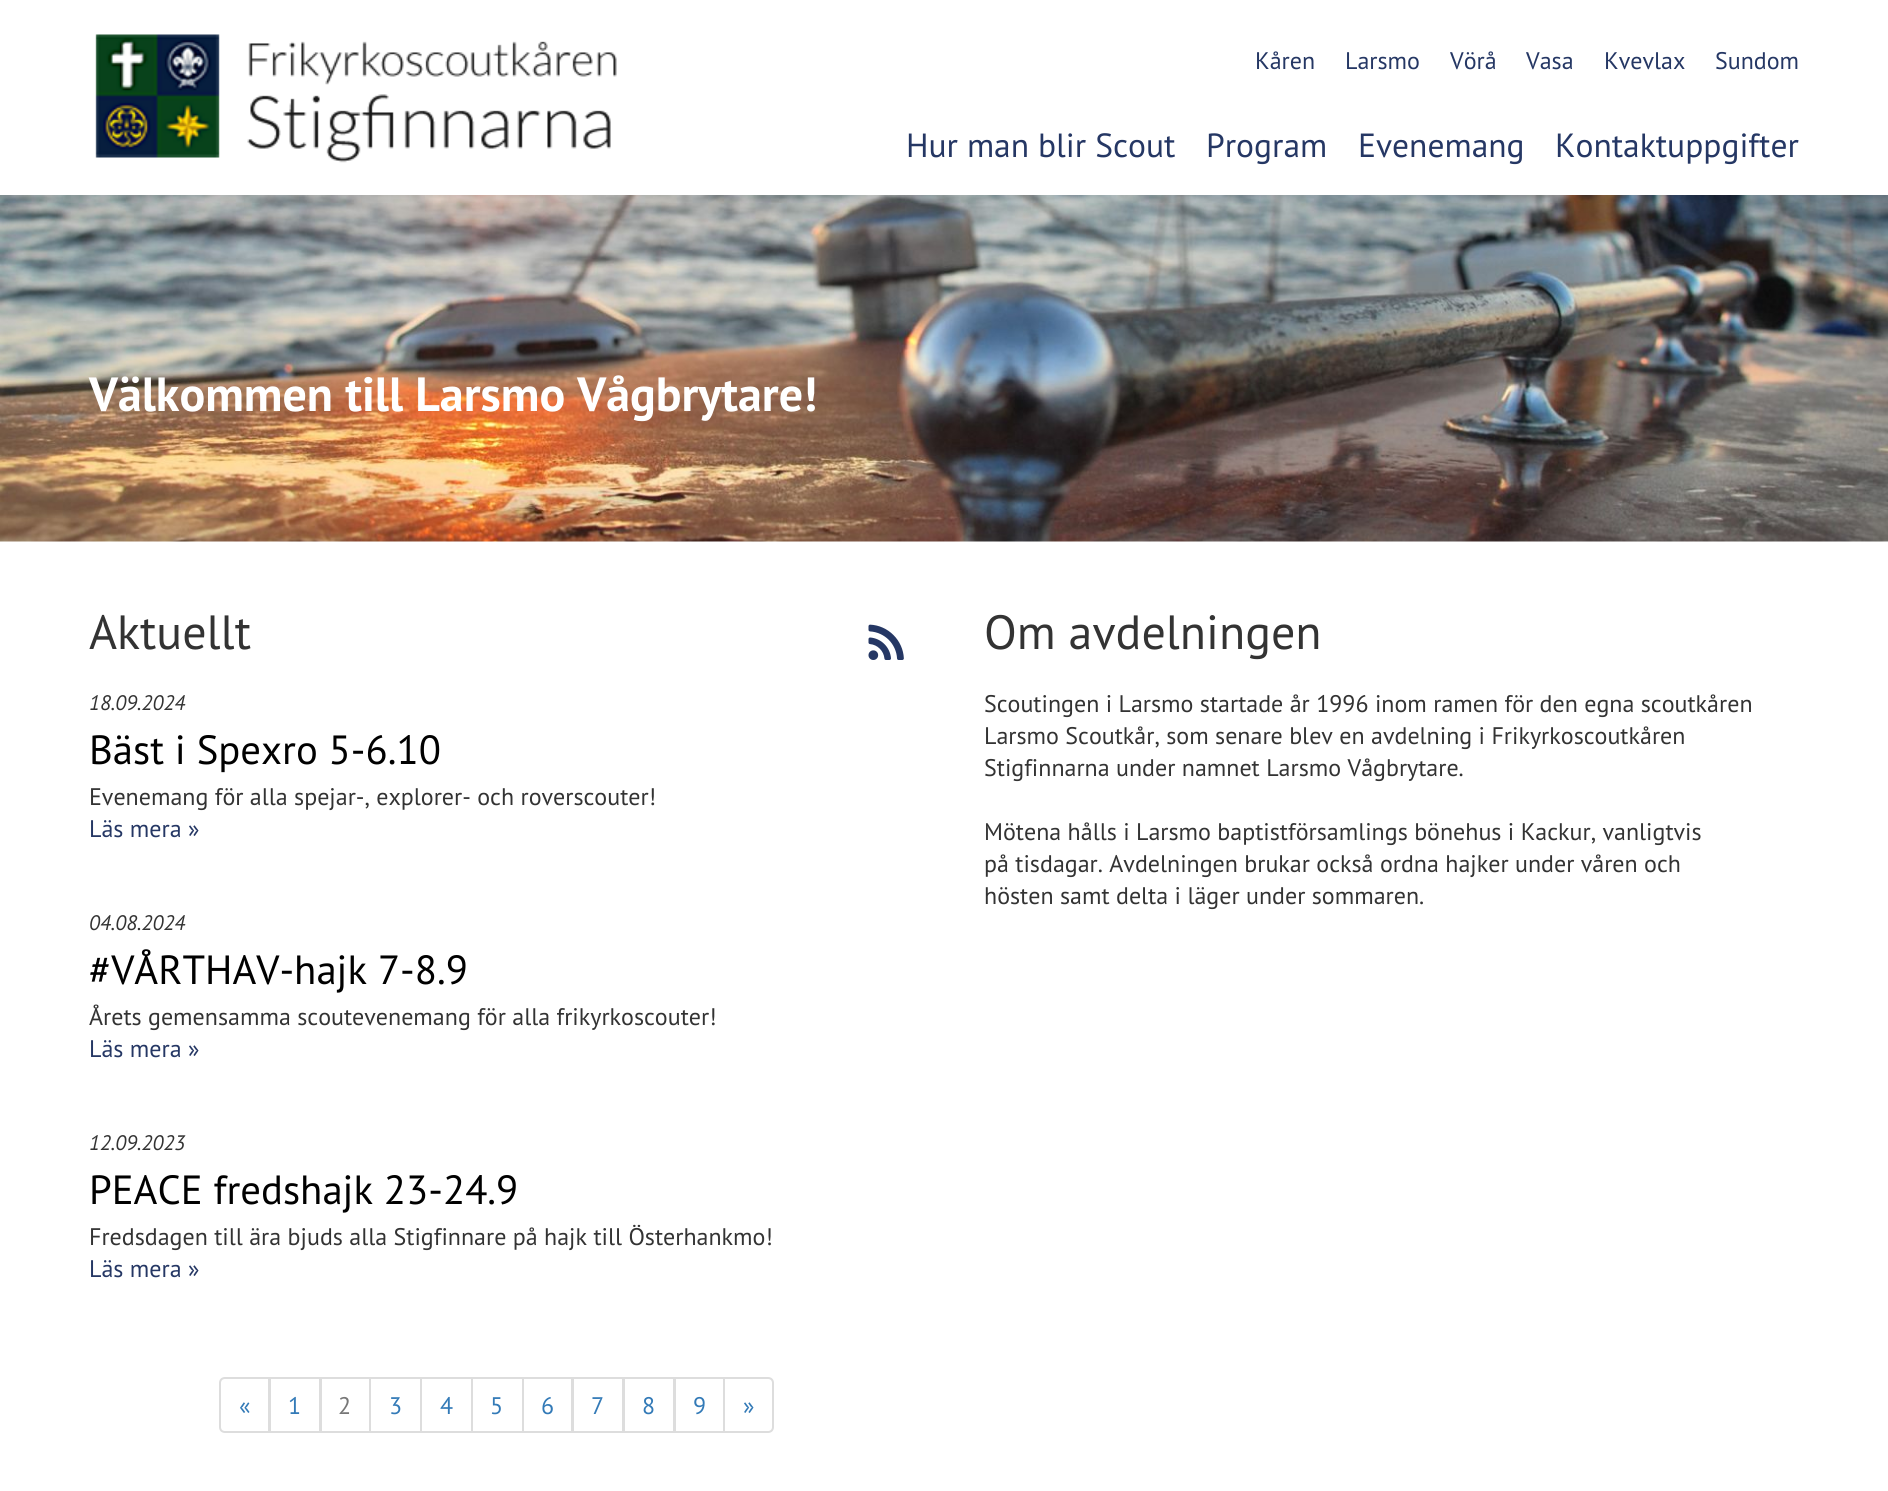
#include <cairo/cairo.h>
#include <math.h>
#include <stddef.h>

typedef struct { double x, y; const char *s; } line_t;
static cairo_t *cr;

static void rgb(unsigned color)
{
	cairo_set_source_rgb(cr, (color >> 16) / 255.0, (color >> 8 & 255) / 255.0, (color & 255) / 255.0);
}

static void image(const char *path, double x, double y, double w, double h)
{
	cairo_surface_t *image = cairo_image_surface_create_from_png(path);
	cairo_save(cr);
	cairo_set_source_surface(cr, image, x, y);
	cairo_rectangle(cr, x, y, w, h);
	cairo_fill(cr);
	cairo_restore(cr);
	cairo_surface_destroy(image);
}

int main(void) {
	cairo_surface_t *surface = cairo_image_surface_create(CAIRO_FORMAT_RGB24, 1888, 1491);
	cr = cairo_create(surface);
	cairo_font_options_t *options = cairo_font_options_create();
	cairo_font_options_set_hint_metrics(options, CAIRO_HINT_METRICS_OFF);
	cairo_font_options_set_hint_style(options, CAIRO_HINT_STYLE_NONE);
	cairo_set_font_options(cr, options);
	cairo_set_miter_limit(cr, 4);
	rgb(0xffffff);
	cairo_paint(cr);
	image("img/1.png", 95, 34, 522, 129);
	image("img/2.png", 0, 195, 1888, 347);
	image("img/3.png", 868, 624, 36, 36);
	cairo_new_path(cr);
	cairo_move_to(cr, 225, 1378);
	cairo_line_to(cr, 269, 1378);
	cairo_line_to(cr, 269, 1432);
	cairo_line_to(cr, 225, 1432);
	cairo_curve_to(cr, 222, 1432, 220, 1430, 220, 1427);
	cairo_line_to(cr, 220, 1383);
	cairo_curve_to(cr, 220, 1380, 222, 1378, 225, 1378);
	cairo_close_path(cr);
	rgb(0xdddddd);
	cairo_stroke(cr);
	cairo_rectangle(cr, 270, 1378, 50, 54);
	cairo_stroke(cr);
	cairo_rectangle(cr, 321, 1378, 49, 54);
	cairo_stroke(cr);
	cairo_rectangle(cr, 370, 1378, 51, 54);
	cairo_stroke(cr);
	cairo_rectangle(cr, 421, 1378, 51, 54);
	cairo_stroke(cr);
	cairo_rectangle(cr, 472, 1378, 51, 54);
	cairo_stroke(cr);
	cairo_rectangle(cr, 523, 1378, 49, 54);
	cairo_stroke(cr);
	cairo_rectangle(cr, 573, 1378, 50, 54);
	cairo_stroke(cr);
	cairo_rectangle(cr, 624, 1378, 50, 54);
	cairo_stroke(cr);
	cairo_rectangle(cr, 675, 1378, 49, 54);
	cairo_stroke(cr);
	rgb(0xffffff);
	cairo_new_path(cr);
	cairo_move_to(cr, 724, 1378);
	cairo_line_to(cr, 768, 1378);
	cairo_curve_to(cr, 771, 1378, 773, 1380, 773, 1383);
	cairo_line_to(cr, 773, 1427);
	cairo_curve_to(cr, 773, 1430, 771, 1432, 768, 1432);
	cairo_line_to(cr, 724, 1432);
	cairo_close_path(cr);
	cairo_fill_preserve(cr);
	rgb(0xdddddd);
	cairo_stroke(cr);
	cairo_select_font_face(cr, "PT Sans", CAIRO_FONT_SLANT_NORMAL, CAIRO_FONT_WEIGHT_NORMAL);
	cairo_set_font_size(cr, 24);
	rgb(0x253764);
	{
		static const line_t items[] = {
			{1255, 69, "Kåren"},
			{1345, 69, "Larsmo"},
			{1450, 69, "Vörå"},
			{1526, 69, "Vasa"},
			{1604, 69, "Kvevlax"},
			{1715, 69, "Sundom"},
		};
		for (size_t i = 0; i < sizeof items / sizeof *items; i++) {
			cairo_move_to(cr, items[i].x, items[i].y);
			cairo_show_text(cr, items[i].s);
		}
	}
	cairo_set_font_size(cr, 33.5);
	{
		static const line_t items[] = {
			{906, 157, "Hur man blir Scout"},
			{1206, 157, "Program"},
			{1358, 157, "Evenemang"},
			{1555, 157, "Kontaktuppgifter"},
		};
		for (size_t i = 0; i < sizeof items / sizeof *items; i++) {
			cairo_move_to(cr, items[i].x, items[i].y);
			cairo_show_text(cr, items[i].s);
		}
	}
	cairo_select_font_face(cr, "PT Sans", CAIRO_FONT_SLANT_NORMAL, CAIRO_FONT_WEIGHT_BOLD);
	cairo_set_font_size(cr, 48);
	rgb(0xffffff);
	cairo_move_to(cr, 89, 411);
	cairo_show_text(cr, "Välkommen till Larsmo Vågbrytare!");
	cairo_select_font_face(cr, "PT Sans", CAIRO_FONT_SLANT_NORMAL, CAIRO_FONT_WEIGHT_NORMAL);
	rgb(0x333333);
	cairo_move_to(cr, 89, 649);
	cairo_show_text(cr, "Aktuellt");
	cairo_select_font_face(cr, "PT Sans", CAIRO_FONT_SLANT_ITALIC, CAIRO_FONT_WEIGHT_NORMAL);
	cairo_set_font_size(cr, 21);
	cairo_move_to(cr, 89, 710);
	cairo_show_text(cr, "18.09.2024");
	cairo_select_font_face(cr, "PT Sans", CAIRO_FONT_SLANT_NORMAL, CAIRO_FONT_WEIGHT_NORMAL);
	cairo_set_font_size(cr, 40.75);
	rgb(0x000000);
	cairo_move_to(cr, 89, 764);
	cairo_show_text(cr, "Bäst i Spexro 5-6.10");
	cairo_set_font_size(cr, 24);
	rgb(0x333333);
	cairo_move_to(cr, 89, 805);
	cairo_show_text(cr, "Evenemang för alla spejar-, explorer- och roverscouter!");
	rgb(0x253764);
	cairo_move_to(cr, 89, 837);
	cairo_show_text(cr, "Läs mera »");
	cairo_select_font_face(cr, "PT Sans", CAIRO_FONT_SLANT_ITALIC, CAIRO_FONT_WEIGHT_NORMAL);
	cairo_set_font_size(cr, 21);
	rgb(0x333333);
	cairo_move_to(cr, 89, 930);
	cairo_show_text(cr, "04.08.2024");
	cairo_select_font_face(cr, "PT Sans", CAIRO_FONT_SLANT_NORMAL, CAIRO_FONT_WEIGHT_NORMAL);
	cairo_set_font_size(cr, 40.75);
	rgb(0x000000);
	cairo_move_to(cr, 89, 984);
	cairo_show_text(cr, "#VÅRTHAV-hajk 7-8.9");
	cairo_set_font_size(cr, 24);
	rgb(0x333333);
	cairo_move_to(cr, 89, 1025);
	cairo_show_text(cr, "Årets gemensamma scoutevenemang för alla frikyrkoscouter!");
	rgb(0x253764);
	cairo_move_to(cr, 89, 1057);
	cairo_show_text(cr, "Läs mera »");
	cairo_select_font_face(cr, "PT Sans", CAIRO_FONT_SLANT_ITALIC, CAIRO_FONT_WEIGHT_NORMAL);
	cairo_set_font_size(cr, 21);
	rgb(0x333333);
	cairo_move_to(cr, 89, 1150);
	cairo_show_text(cr, "12.09.2023");
	cairo_select_font_face(cr, "PT Sans", CAIRO_FONT_SLANT_NORMAL, CAIRO_FONT_WEIGHT_NORMAL);
	cairo_set_font_size(cr, 40.75);
	rgb(0x000000);
	cairo_move_to(cr, 89, 1204);
	cairo_show_text(cr, "PEACE fredshajk 23-24.9");
	cairo_set_font_size(cr, 24);
	rgb(0x333333);
	cairo_move_to(cr, 89, 1245);
	cairo_show_text(cr, "Fredsdagen till ära bjuds alla Stigfinnare på hajk till Österhankmo!");
	rgb(0x253764);
	cairo_move_to(cr, 89, 1277);
	cairo_show_text(cr, "Läs mera »");
	rgb(0x337ab7);
	cairo_move_to(cr, 239, 1414);
	cairo_show_text(cr, "«");
	cairo_move_to(cr, 288, 1414);
	cairo_show_text(cr, "1");
	rgb(0x777777);
	cairo_move_to(cr, 338, 1414);
	cairo_show_text(cr, "2");
	rgb(0x337ab7);
	{
		static const line_t items[] = {
			{389, 1414, "3"},
			{440, 1414, "4"},
			{490, 1414, "5"},
			{541, 1414, "6"},
			{591, 1414, "7"},
			{642, 1414, "8"},
			{693, 1414, "9"},
			{743, 1414, "»"},
		};
		for (size_t i = 0; i < sizeof items / sizeof *items; i++) {
			cairo_move_to(cr, items[i].x, items[i].y);
			cairo_show_text(cr, items[i].s);
		}
	}
	cairo_set_font_size(cr, 48);
	rgb(0x333333);
	cairo_move_to(cr, 984, 649);
	cairo_show_text(cr, "Om avdelningen");
	cairo_set_font_size(cr, 24);
	{
		static const line_t items[] = {
			{984, 712, "Scoutingen i Larsmo startade år 1996 inom ramen för den egna scoutkåren"},
			{984, 744, "Larsmo Scoutkår, som senare blev en avdelning i Frikyrkoscoutkåren"},
			{984, 776, "Stigfinnarna under namnet Larsmo Vågbrytare."},
			{984, 840, "Mötena hålls i Larsmo baptistförsamlings bönehus i Kackur, vanligtvis"},
			{984, 872, "på tisdagar. Avdelningen brukar också ordna hajker under våren och"},
			{984, 904, "hösten samt delta i läger under sommaren."},
		};
		for (size_t i = 0; i < sizeof items / sizeof *items; i++) {
			cairo_move_to(cr, items[i].x, items[i].y);
			cairo_show_text(cr, items[i].s);
		}
	}
	cairo_surface_write_to_png(surface, "page.png");
	cairo_font_options_destroy(options);
	cairo_destroy(cr);
	cairo_surface_destroy(surface);
	return 0;
}
